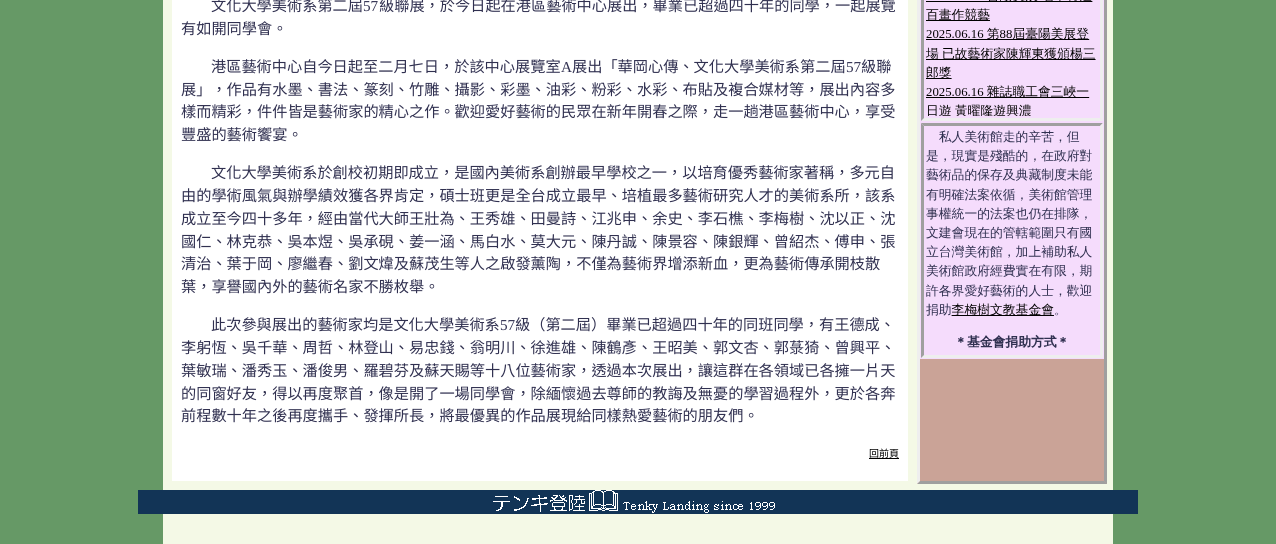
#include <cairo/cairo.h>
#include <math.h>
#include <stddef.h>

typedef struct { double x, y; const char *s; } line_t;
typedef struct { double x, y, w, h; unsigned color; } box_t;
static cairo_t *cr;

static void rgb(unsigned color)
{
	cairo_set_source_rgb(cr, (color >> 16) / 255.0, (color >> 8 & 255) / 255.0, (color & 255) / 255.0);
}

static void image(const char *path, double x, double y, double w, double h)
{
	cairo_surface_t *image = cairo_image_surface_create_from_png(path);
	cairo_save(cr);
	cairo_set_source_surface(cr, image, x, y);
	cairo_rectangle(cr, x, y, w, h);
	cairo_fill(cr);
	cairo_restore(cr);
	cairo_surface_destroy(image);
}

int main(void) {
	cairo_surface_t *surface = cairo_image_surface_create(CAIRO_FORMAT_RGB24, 1276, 544);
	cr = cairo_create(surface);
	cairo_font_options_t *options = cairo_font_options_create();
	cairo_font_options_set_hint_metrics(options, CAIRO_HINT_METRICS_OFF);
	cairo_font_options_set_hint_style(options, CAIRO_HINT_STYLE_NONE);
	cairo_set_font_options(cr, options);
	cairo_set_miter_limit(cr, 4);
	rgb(0x669966);
	cairo_paint(cr);
	{
		static const box_t items[] = {
			{163, 0, 950, 490, 0xf4f9e6},
			{172, 0, 736, 481, 0xffffff},
			{869, 458, 30, 1, 0x000000},
			{917, 359, 190, 125, 0xcaa397},
		};
		for (size_t i = 0; i < sizeof items / sizeof *items; i++) {
			rgb(items[i].color);
			cairo_rectangle(cr, items[i].x, items[i].y, items[i].w, items[i].h);
			cairo_fill(cr);
		}
	}
	rgb(0x9f9f9f);
	cairo_new_path(cr);
	cairo_move_to(cr, 1107, -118);
	cairo_line_to(cr, 1107, 484);
	cairo_line_to(cr, 1104, 481);
	cairo_line_to(cr, 1104, -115);
	cairo_close_path(cr);
	cairo_fill(cr);
	cairo_new_path(cr);
	cairo_move_to(cr, 1107, 484);
	cairo_line_to(cr, 917, 484);
	cairo_line_to(cr, 920, 481);
	cairo_line_to(cr, 1104, 481);
	cairo_close_path(cr);
	cairo_fill(cr);
	rgb(0xeeeeee);
	cairo_new_path(cr);
	cairo_move_to(cr, 917, 484);
	cairo_line_to(cr, 917, -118);
	cairo_line_to(cr, 920, -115);
	cairo_line_to(cr, 920, 481);
	cairo_close_path(cr);
	cairo_fill(cr);
	rgb(0xf5dcfc);
	cairo_rectangle(cr, 920, 0, 184, 359);
	cairo_fill(cr);
	rgb(0xeeeeee);
	cairo_new_path(cr);
	cairo_move_to(cr, 1103, -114);
	cairo_line_to(cr, 1103, 121);
	cairo_line_to(cr, 1100, 118);
	cairo_line_to(cr, 1100, -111);
	cairo_close_path(cr);
	cairo_fill(cr);
	cairo_new_path(cr);
	cairo_move_to(cr, 1103, 121);
	cairo_line_to(cr, 921, 121);
	cairo_line_to(cr, 924, 118);
	cairo_line_to(cr, 1100, 118);
	cairo_close_path(cr);
	cairo_fill(cr);
	rgb(0x9f9f9f);
	cairo_new_path(cr);
	cairo_move_to(cr, 921, 121);
	cairo_line_to(cr, 921, -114);
	cairo_line_to(cr, 924, -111);
	cairo_line_to(cr, 924, 118);
	cairo_close_path(cr);
	cairo_fill(cr);
	image("img/1.png", 926, 0, 170, 116);
	cairo_new_path(cr);
	cairo_move_to(cr, 921, 123);
	cairo_line_to(cr, 1103, 123);
	cairo_line_to(cr, 1100, 126);
	cairo_line_to(cr, 924, 126);
	cairo_close_path(cr);
	cairo_fill(cr);
	rgb(0xeeeeee);
	cairo_new_path(cr);
	cairo_move_to(cr, 1103, 123);
	cairo_line_to(cr, 1103, 358);
	cairo_line_to(cr, 1100, 355);
	cairo_line_to(cr, 1100, 126);
	cairo_close_path(cr);
	cairo_fill(cr);
	cairo_new_path(cr);
	cairo_move_to(cr, 1103, 358);
	cairo_line_to(cr, 921, 358);
	cairo_line_to(cr, 924, 355);
	cairo_line_to(cr, 1100, 355);
	cairo_close_path(cr);
	cairo_fill(cr);
	rgb(0x9f9f9f);
	cairo_new_path(cr);
	cairo_move_to(cr, 921, 358);
	cairo_line_to(cr, 921, 123);
	cairo_line_to(cr, 924, 126);
	cairo_line_to(cr, 924, 355);
	cairo_close_path(cr);
	cairo_fill(cr);
	image("img/2.png", 926, 130, 166, 218);
	rgb(0x123456);
	cairo_rectangle(cr, 138, 490, 1000, 24);
	cairo_fill(cr);
	image("img/3.png", 493, 490, 282, 23);
	rgb(0xf4f9e6);
	cairo_rectangle(cr, 163, 514, 950, 30);
	cairo_fill(cr);
	cairo_select_font_face(cr, "Noto Sans CJK TC", CAIRO_FONT_SLANT_NORMAL, CAIRO_FONT_WEIGHT_NORMAL);
	cairo_set_font_size(cr, 15.2);
	rgb(0x303050);
	cairo_move_to(cr, 211, 11);
	cairo_show_text(cr, "文化大學美術系第二屆");
	cairo_select_font_face(cr, "Liberation Serif", CAIRO_FONT_SLANT_NORMAL, CAIRO_FONT_WEIGHT_NORMAL);
	cairo_move_to(cr, 363, 11);
	cairo_show_text(cr, "57");
	cairo_select_font_face(cr, "Noto Sans CJK TC", CAIRO_FONT_SLANT_NORMAL, CAIRO_FONT_WEIGHT_NORMAL);
	{
		static const line_t items[] = {
			{379, 11, "級聯展，於今日起在港區藝術中心展出，畢業已超過四十年的同學，一起展覽"},
			{181, 34, "有如開同學會。"},
			{211, 72, "港區藝術中心自今日起至二月七日，於該中心展覽室"},
		};
		for (size_t i = 0; i < sizeof items / sizeof *items; i++) {
			cairo_move_to(cr, items[i].x, items[i].y);
			cairo_show_text(cr, items[i].s);
		}
	}
	cairo_select_font_face(cr, "Liberation Serif", CAIRO_FONT_SLANT_NORMAL, CAIRO_FONT_WEIGHT_NORMAL);
	cairo_move_to(cr, 561, 72);
	cairo_show_text(cr, "A");
	cairo_select_font_face(cr, "Noto Sans CJK TC", CAIRO_FONT_SLANT_NORMAL, CAIRO_FONT_WEIGHT_NORMAL);
	cairo_move_to(cr, 572, 72);
	cairo_show_text(cr, "展出「華岡心傳、文化大學美術系第二屆");
	cairo_select_font_face(cr, "Liberation Serif", CAIRO_FONT_SLANT_NORMAL, CAIRO_FONT_WEIGHT_NORMAL);
	cairo_move_to(cr, 846, 72);
	cairo_show_text(cr, "57");
	cairo_select_font_face(cr, "Noto Sans CJK TC", CAIRO_FONT_SLANT_NORMAL, CAIRO_FONT_WEIGHT_NORMAL);
	{
		static const line_t items[] = {
			{861, 72, "級聯"},
			{181, 95, "展」，作品有水墨、書法、篆刻、竹雕、攝影、彩墨、油彩、粉彩、水彩、布貼及複合媒材等，展出內容多"},
			{181, 117, "樣而精彩，件件皆是藝術家的精心之作。歡迎愛好藝術的民眾在新年開春之際，走一趟港區藝術中心，享受"},
			{181, 140, "豐盛的藝術饗宴。"},
			{211, 178, "文化大學美術系於創校初期即成立，是國內美術系創辦最早學校之一，以培育優秀藝術家著稱，多元自"},
			{181, 201, "由的學術風氣與辦學績效獲各界肯定，碩士班更是全台成立最早、培植最多藝術研究人才的美術系所，該系"},
			{181, 224, "成立至今四十多年，經由當代大師王壯為、王秀雄、田曼詩、江兆申、余史、李石樵、李梅樹、沈以正、沈"},
			{181, 247, "國仁、林克恭、吳本煜、吳承硯、姜一涵、馬白水、莫大元、陳丹誠、陳景容、陳銀輝、曾紹杰、傅申、張"},
			{181, 269, "清治、葉于岡、廖繼春、劉文煒及蘇茂生等人之啟發薰陶，不僅為藝術界增添新血，更為藝術傳承開枝散"},
			{181, 292, "葉，享譽國內外的藝術名家不勝枚舉。"},
			{211, 330, "此次參與展出的藝術家均是文化大學美術系"},
		};
		for (size_t i = 0; i < sizeof items / sizeof *items; i++) {
			cairo_move_to(cr, items[i].x, items[i].y);
			cairo_show_text(cr, items[i].s);
		}
	}
	cairo_select_font_face(cr, "Liberation Serif", CAIRO_FONT_SLANT_NORMAL, CAIRO_FONT_WEIGHT_NORMAL);
	cairo_move_to(cr, 500, 330);
	cairo_show_text(cr, "57");
	cairo_select_font_face(cr, "Noto Sans CJK TC", CAIRO_FONT_SLANT_NORMAL, CAIRO_FONT_WEIGHT_NORMAL);
	{
		static const line_t items[] = {
			{515, 330, "級（第二屆）畢業已超過四十年的同班同學，有王德成、"},
			{181, 353, "李躬恆、吳千華、周哲、林登山、易忠錢、翁明川、徐進雄、陳鶴彥、王昭美、郭文杏、郭菉猗、曾興平、"},
			{181, 376, "葉敏瑞、潘秀玉、潘俊男、羅碧芬及蘇天賜等十八位藝術家，透過本次展出，讓這群在各領域已各擁一片天"},
			{181, 399, "的同窗好友，得以再度聚首，像是開了一場同學會，除緬懷過去尊師的教誨及無憂的學習過程外，更於各奔"},
			{181, 421, "前程數十年之後再度攜手、發揮所長，將最優異的作品展現給同樣熱愛藝術的朋友們。"},
		};
		for (size_t i = 0; i < sizeof items / sizeof *items; i++) {
			cairo_move_to(cr, items[i].x, items[i].y);
			cairo_show_text(cr, items[i].s);
		}
	}
	cairo_set_font_size(cr, 10);
	rgb(0x000000);
	cairo_move_to(cr, 869, 457);
	cairo_show_text(cr, "回前頁");
	cairo_surface_write_to_png(surface, "page.png");
	cairo_font_options_destroy(options);
	cairo_destroy(cr);
	cairo_surface_destroy(surface);
	return 0;
}
